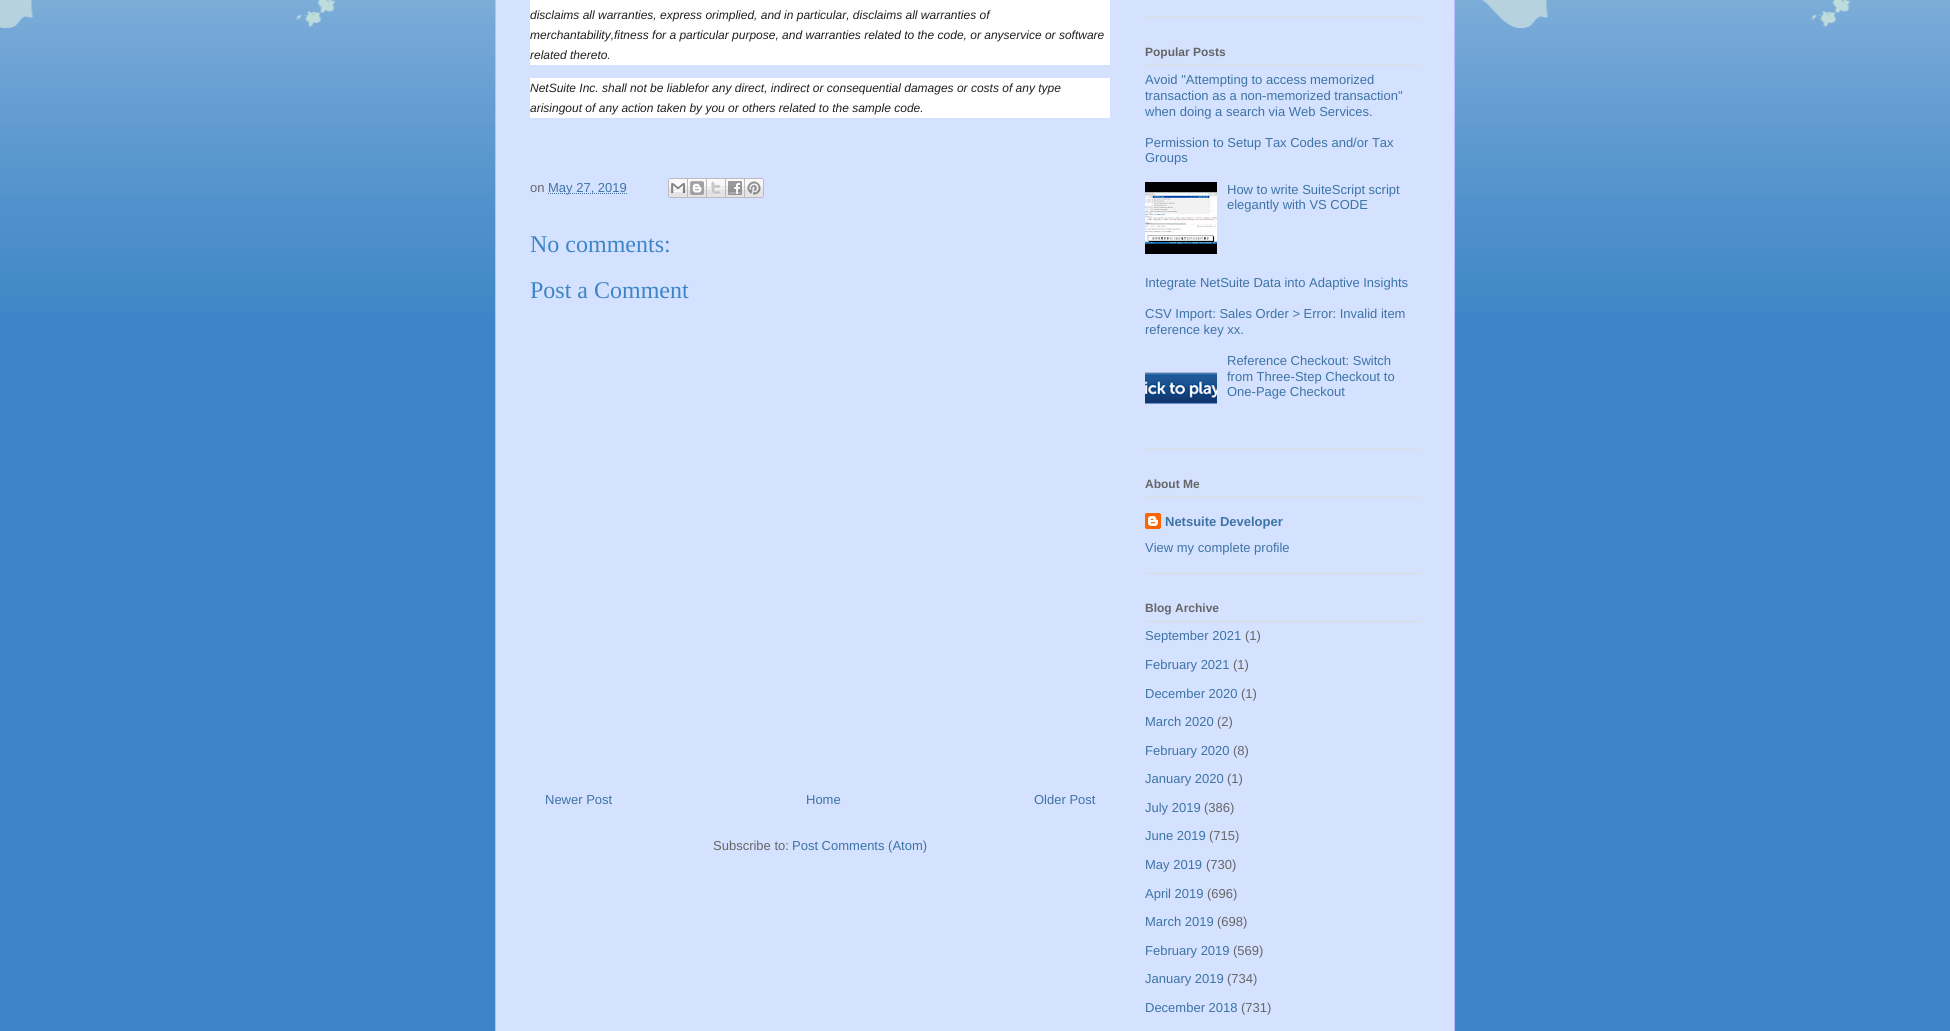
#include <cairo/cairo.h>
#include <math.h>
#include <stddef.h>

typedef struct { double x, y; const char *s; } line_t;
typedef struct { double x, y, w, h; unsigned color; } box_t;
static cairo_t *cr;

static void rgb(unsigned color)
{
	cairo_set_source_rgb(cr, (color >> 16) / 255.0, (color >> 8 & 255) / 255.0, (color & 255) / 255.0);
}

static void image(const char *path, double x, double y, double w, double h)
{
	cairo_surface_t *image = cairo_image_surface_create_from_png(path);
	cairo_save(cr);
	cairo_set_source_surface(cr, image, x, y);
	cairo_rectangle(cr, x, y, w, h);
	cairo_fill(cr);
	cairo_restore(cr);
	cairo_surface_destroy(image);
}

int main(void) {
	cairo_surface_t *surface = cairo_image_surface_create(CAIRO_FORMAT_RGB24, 1950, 1031);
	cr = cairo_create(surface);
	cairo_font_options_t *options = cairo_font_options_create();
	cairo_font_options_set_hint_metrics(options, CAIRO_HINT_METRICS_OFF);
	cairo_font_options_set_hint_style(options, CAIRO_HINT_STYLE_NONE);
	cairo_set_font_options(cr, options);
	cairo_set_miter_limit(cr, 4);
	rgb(0x3d85c6);
	cairo_paint(cr);
	image("img/1.png", 0, 0, 1950, 313);
	{
		static const box_t items[] = {
			{496, 0, 958, 1031, 0xd4e1ff},
			{1454, 0, 1, 1031, 0xbbbbff},
			{495, 0, 1, 1031, 0xbbbbff},
			{530, 0, 580, 65, 0xffffff},
			{530, 78, 580, 40, 0xffffff},
		};
		for (size_t i = 0; i < sizeof items / sizeof *items; i++) {
			rgb(items[i].color);
			cairo_rectangle(cr, items[i].x, items[i].y, items[i].w, items[i].h);
			cairo_fill(cr);
		}
	}
	cairo_new_path(cr);
	cairo_move_to(cr, 548, 193.5);
	cairo_line_to(cr, 627, 193.5);
	rgb(0x3d74a5);
	cairo_set_line_width(cr, 1);
	cairo_set_dash(cr, (double[]){1, 1}, 2, 0);
	cairo_stroke(cr);
	image("img/2.png", 668, 178, 20, 20);
	image("img/3.png", 688, 178, 19, 20);
	image("img/4.png", 707, 178, 19, 20);
	image("img/5.png", 726, 178, 19, 20);
	image("img/6.png", 745, 178, 19, 20);
	{
		static const box_t items[] = {
			{1145, 17, 275, 1, 0xdbdbdb},
			{1145, 449, 275, 1, 0xdbdbdb},
			{1145, 65, 275, 1, 0xdbdbdb},
		};
		for (size_t i = 0; i < sizeof items / sizeof *items; i++) {
			rgb(items[i].color);
			cairo_rectangle(cr, items[i].x, items[i].y, items[i].w, items[i].h);
			cairo_fill(cr);
		}
	}
	image("img/7.png", 1145, 182, 72, 72);
	image("img/8.png", 1145, 372, 72, 32);
	cairo_rectangle(cr, 1145, 573, 275, 1);
	cairo_fill(cr);
	cairo_rectangle(cr, 1145, 497, 275, 1);
	cairo_fill(cr);
	image("img/9.png", 1145, 513, 16, 16);
	cairo_rectangle(cr, 1145, 621, 275, 1);
	cairo_fill(cr);
	cairo_select_font_face(cr, "Liberation Sans", CAIRO_FONT_SLANT_ITALIC, CAIRO_FONT_WEIGHT_NORMAL);
	cairo_set_font_size(cr, 12);
	rgb(0x202020);
	{
		static const line_t items[] = {
			{530, 19, "disclaims all warranties, express orimplied, and in particular, disclaims all warranties of"},
			{530, 39, "merchantability,fitness for a particular purpose, and warranties related to the code, or anyservice or software"},
			{530, 59, "related thereto."},
			{530, 92, "NetSuite Inc. shall not be liablefor any direct, indirect or consequential damages or costs of any type"},
			{530, 112, "arisingout of any action taken by you or others related to the sample code."},
		};
		for (size_t i = 0; i < sizeof items / sizeof *items; i++) {
			cairo_move_to(cr, items[i].x, items[i].y);
			cairo_show_text(cr, items[i].s);
		}
	}
	cairo_select_font_face(cr, "Liberation Sans", CAIRO_FONT_SLANT_NORMAL, CAIRO_FONT_WEIGHT_NORMAL);
	cairo_set_font_size(cr, 13);
	rgb(0x666666);
	cairo_move_to(cr, 530, 192);
	cairo_show_text(cr, "on");
	rgb(0x3d74a5);
	cairo_move_to(cr, 548, 192);
	cairo_show_text(cr, "May 27, 2019");
	cairo_select_font_face(cr, "Liberation Serif", CAIRO_FONT_SLANT_NORMAL, CAIRO_FONT_WEIGHT_NORMAL);
	cairo_set_font_size(cr, 24);
	rgb(0x3d85c6);
	cairo_move_to(cr, 530, 252);
	cairo_show_text(cr, "No comments:");
	cairo_move_to(cr, 530, 298);
	cairo_show_text(cr, "Post a Comment");
	cairo_select_font_face(cr, "Liberation Sans", CAIRO_FONT_SLANT_NORMAL, CAIRO_FONT_WEIGHT_NORMAL);
	cairo_set_font_size(cr, 13);
	rgb(0x3d74a5);
	{
		static const line_t items[] = {
			{545, 804, "Newer Post"},
			{806, 804, "Home"},
			{1034, 804, "Older Post"},
		};
		for (size_t i = 0; i < sizeof items / sizeof *items; i++) {
			cairo_move_to(cr, items[i].x, items[i].y);
			cairo_show_text(cr, items[i].s);
		}
	}
	rgb(0x666666);
	cairo_move_to(cr, 713, 850);
	cairo_show_text(cr, "Subscribe to:");
	rgb(0x3d74a5);
	cairo_move_to(cr, 792, 850);
	cairo_show_text(cr, "Post Comments (Atom)");
	cairo_select_font_face(cr, "Liberation Sans", CAIRO_FONT_SLANT_NORMAL, CAIRO_FONT_WEIGHT_BOLD);
	cairo_set_font_size(cr, 12);
	rgb(0x666666);
	cairo_move_to(cr, 1145, 56);
	cairo_show_text(cr, "Popular Posts");
	cairo_select_font_face(cr, "Liberation Sans", CAIRO_FONT_SLANT_NORMAL, CAIRO_FONT_WEIGHT_NORMAL);
	cairo_set_font_size(cr, 13);
	rgb(0x3d74a5);
	{
		static const line_t items[] = {
			{1145, 84, "Avoid \"Attempting to access memorized"},
			{1145, 100, "transaction as a non-memorized transaction\""},
			{1145, 116, "when doing a search via Web Services."},
			{1145, 147, "Permission to Setup Tax Codes and/or Tax"},
			{1145, 162, "Groups"},
			{1227, 194, "How to write SuiteScript script"},
			{1227, 209, "elegantly with VS CODE"},
			{1145, 287, "Integrate NetSuite Data into Adaptive Insights"},
			{1145, 318, "CSV Import: Sales Order > Error: Invalid item"},
			{1145, 334, "reference key xx."},
			{1227, 365, "Reference Checkout: Switch"},
			{1227, 381, "from Three-Step Checkout to"},
			{1227, 396, "One-Page Checkout"},
		};
		for (size_t i = 0; i < sizeof items / sizeof *items; i++) {
			cairo_move_to(cr, items[i].x, items[i].y);
			cairo_show_text(cr, items[i].s);
		}
	}
	cairo_select_font_face(cr, "Liberation Sans", CAIRO_FONT_SLANT_NORMAL, CAIRO_FONT_WEIGHT_BOLD);
	cairo_set_font_size(cr, 12);
	rgb(0x666666);
	cairo_move_to(cr, 1145, 488);
	cairo_show_text(cr, "About Me");
	cairo_set_font_size(cr, 13);
	rgb(0x3d74a5);
	cairo_move_to(cr, 1165, 526);
	cairo_show_text(cr, "Netsuite Developer");
	cairo_select_font_face(cr, "Liberation Sans", CAIRO_FONT_SLANT_NORMAL, CAIRO_FONT_WEIGHT_NORMAL);
	cairo_move_to(cr, 1145, 552);
	cairo_show_text(cr, "View my complete profile");
	cairo_select_font_face(cr, "Liberation Sans", CAIRO_FONT_SLANT_NORMAL, CAIRO_FONT_WEIGHT_BOLD);
	cairo_set_font_size(cr, 12);
	rgb(0x666666);
	cairo_move_to(cr, 1145, 612);
	cairo_show_text(cr, "Blog Archive");
	cairo_select_font_face(cr, "Liberation Sans", CAIRO_FONT_SLANT_NORMAL, CAIRO_FONT_WEIGHT_NORMAL);
	cairo_set_font_size(cr, 13);
	rgb(0x3d74a5);
	cairo_move_to(cr, 1145, 640);
	cairo_show_text(cr, "September 2021");
	rgb(0x666666);
	cairo_move_to(cr, 1245, 640);
	cairo_show_text(cr, "(1)");
	rgb(0x3d74a5);
	cairo_move_to(cr, 1145, 669);
	cairo_show_text(cr, "February 2021");
	rgb(0x666666);
	cairo_move_to(cr, 1233, 669);
	cairo_show_text(cr, "(1)");
	rgb(0x3d74a5);
	cairo_move_to(cr, 1145, 698);
	cairo_show_text(cr, "December 2020");
	rgb(0x666666);
	cairo_move_to(cr, 1241, 698);
	cairo_show_text(cr, "(1)");
	rgb(0x3d74a5);
	cairo_move_to(cr, 1145, 726);
	cairo_show_text(cr, "March 2020");
	rgb(0x666666);
	cairo_move_to(cr, 1217, 726);
	cairo_show_text(cr, "(2)");
	rgb(0x3d74a5);
	cairo_move_to(cr, 1145, 755);
	cairo_show_text(cr, "February 2020");
	rgb(0x666666);
	cairo_move_to(cr, 1233, 755);
	cairo_show_text(cr, "(8)");
	rgb(0x3d74a5);
	cairo_move_to(cr, 1145, 783);
	cairo_show_text(cr, "January 2020");
	rgb(0x666666);
	cairo_move_to(cr, 1227, 783);
	cairo_show_text(cr, "(1)");
	rgb(0x3d74a5);
	cairo_move_to(cr, 1145, 812);
	cairo_show_text(cr, "July 2019");
	rgb(0x666666);
	cairo_move_to(cr, 1204, 812);
	cairo_show_text(cr, "(386)");
	rgb(0x3d74a5);
	cairo_move_to(cr, 1145, 840);
	cairo_show_text(cr, "June 2019");
	rgb(0x666666);
	cairo_move_to(cr, 1209, 840);
	cairo_show_text(cr, "(715)");
	rgb(0x3d74a5);
	cairo_move_to(cr, 1145, 869);
	cairo_show_text(cr, "May 2019");
	rgb(0x666666);
	cairo_move_to(cr, 1206, 869);
	cairo_show_text(cr, "(730)");
	rgb(0x3d74a5);
	cairo_move_to(cr, 1145, 898);
	cairo_show_text(cr, "April 2019");
	rgb(0x666666);
	cairo_move_to(cr, 1207, 898);
	cairo_show_text(cr, "(696)");
	rgb(0x3d74a5);
	cairo_move_to(cr, 1145, 926);
	cairo_show_text(cr, "March 2019");
	rgb(0x666666);
	cairo_move_to(cr, 1217, 926);
	cairo_show_text(cr, "(698)");
	rgb(0x3d74a5);
	cairo_move_to(cr, 1145, 955);
	cairo_show_text(cr, "February 2019");
	rgb(0x666666);
	cairo_move_to(cr, 1233, 955);
	cairo_show_text(cr, "(569)");
	rgb(0x3d74a5);
	cairo_move_to(cr, 1145, 983);
	cairo_show_text(cr, "January 2019");
	rgb(0x666666);
	cairo_move_to(cr, 1227, 983);
	cairo_show_text(cr, "(734)");
	rgb(0x3d74a5);
	cairo_move_to(cr, 1145, 1012);
	cairo_show_text(cr, "December 2018");
	rgb(0x666666);
	cairo_move_to(cr, 1241, 1012);
	cairo_show_text(cr, "(731)");
	cairo_surface_write_to_png(surface, "page.png");
	cairo_font_options_destroy(options);
	cairo_destroy(cr);
	cairo_surface_destroy(surface);
	return 0;
}
